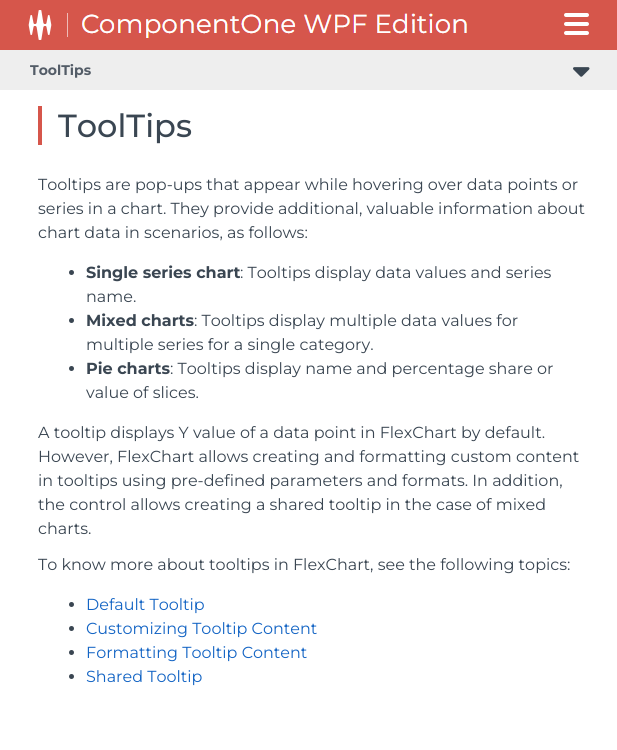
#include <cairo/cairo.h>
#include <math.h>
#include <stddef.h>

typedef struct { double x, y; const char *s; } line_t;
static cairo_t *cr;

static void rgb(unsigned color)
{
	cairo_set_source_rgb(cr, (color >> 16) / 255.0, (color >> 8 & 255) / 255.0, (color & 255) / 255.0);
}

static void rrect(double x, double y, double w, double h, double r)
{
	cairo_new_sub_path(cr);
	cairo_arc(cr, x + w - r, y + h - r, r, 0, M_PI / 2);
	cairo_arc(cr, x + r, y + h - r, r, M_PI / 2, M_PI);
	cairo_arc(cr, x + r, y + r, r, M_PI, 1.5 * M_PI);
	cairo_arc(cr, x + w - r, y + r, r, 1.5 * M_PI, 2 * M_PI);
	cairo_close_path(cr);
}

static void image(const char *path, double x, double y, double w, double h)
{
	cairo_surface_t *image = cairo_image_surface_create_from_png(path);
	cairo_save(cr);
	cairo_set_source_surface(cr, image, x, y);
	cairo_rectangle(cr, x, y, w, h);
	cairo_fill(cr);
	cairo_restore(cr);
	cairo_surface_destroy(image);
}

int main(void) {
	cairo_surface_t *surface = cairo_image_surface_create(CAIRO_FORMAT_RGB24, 617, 750);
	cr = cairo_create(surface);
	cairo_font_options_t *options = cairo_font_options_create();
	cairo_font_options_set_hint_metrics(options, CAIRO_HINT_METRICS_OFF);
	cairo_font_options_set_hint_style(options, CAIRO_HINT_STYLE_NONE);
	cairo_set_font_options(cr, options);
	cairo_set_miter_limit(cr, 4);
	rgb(0xffffff);
	cairo_paint(cr);
	rgb(0xd6564b);
	cairo_rectangle(cr, 0, 0, 617, 50);
	cairo_fill(cr);
	image("img/1.png", 28, 10, 24, 30);
	rgb(0xefbbb7);
	cairo_rectangle(cr, 67, 13, 1, 24);
	cairo_fill(cr);
	image("img/2.png", 82, 13, 385, 25);
	rgb(0xffffff);
	rrect(564, 13, 25, 4, 2);
	cairo_fill(cr);
	rrect(564, 22, 25, 4, 2);
	cairo_fill(cr);
	rrect(564, 31, 25, 4, 2);
	cairo_fill(cr);
	rgb(0xeeeeee);
	cairo_rectangle(cr, 0, 50, 617, 40);
	cairo_fill(cr);
	image("img/3.png", 573, 67, 17, 10);
	rgb(0xd6564b);
	cairo_rectangle(cr, 38, 106, 4, 39);
	cairo_fill(cr);
	rgb(0x3a4652);
	cairo_arc(cr, 71.5, 272.5, 2.5, 0, 2 * M_PI);
	cairo_fill(cr);
	cairo_arc(cr, 71.5, 320.5, 2.5, 0, 2 * M_PI);
	cairo_fill(cr);
	cairo_arc(cr, 71.5, 368.5, 2.5, 0, 2 * M_PI);
	cairo_fill(cr);
	cairo_arc(cr, 71.5, 604.5, 2.5, 0, 2 * M_PI);
	cairo_fill(cr);
	cairo_arc(cr, 71.5, 628.5, 2.5, 0, 2 * M_PI);
	cairo_fill(cr);
	cairo_arc(cr, 71.5, 652.5, 2.5, 0, 2 * M_PI);
	cairo_fill(cr);
	cairo_arc(cr, 71.5, 676.5, 2.5, 0, 2 * M_PI);
	cairo_fill(cr);
	cairo_select_font_face(cr, "Montserrat", CAIRO_FONT_SLANT_NORMAL, CAIRO_FONT_WEIGHT_BOLD);
	cairo_set_font_size(cr, 14);
	rgb(0x535c67);
	cairo_move_to(cr, 30, 75);
	cairo_show_text(cr, "ToolTips");
	cairo_select_font_face(cr, "Montserrat Medium", CAIRO_FONT_SLANT_NORMAL, CAIRO_FONT_WEIGHT_NORMAL);
	cairo_set_font_size(cr, 32);
	rgb(0x3a4652);
	cairo_move_to(cr, 58, 137);
	cairo_show_text(cr, "ToolTips");
	cairo_select_font_face(cr, "Montserrat", CAIRO_FONT_SLANT_NORMAL, CAIRO_FONT_WEIGHT_NORMAL);
	cairo_set_font_size(cr, 16);
	{
		static const line_t items[] = {
			{38, 190, "Tooltips are pop-ups that appear while hovering over data points or"},
			{38, 214, "series in a chart. They provide additional, valuable information about"},
			{38, 238, "chart data in scenarios, as follows:"},
		};
		for (size_t i = 0; i < sizeof items / sizeof *items; i++) {
			cairo_move_to(cr, items[i].x, items[i].y);
			cairo_show_text(cr, items[i].s);
		}
	}
	cairo_select_font_face(cr, "Montserrat", CAIRO_FONT_SLANT_NORMAL, CAIRO_FONT_WEIGHT_BOLD);
	cairo_move_to(cr, 86, 278);
	cairo_show_text(cr, "Single series chart");
	cairo_select_font_face(cr, "Montserrat", CAIRO_FONT_SLANT_NORMAL, CAIRO_FONT_WEIGHT_NORMAL);
	cairo_move_to(cr, 240, 278);
	cairo_show_text(cr, ": Tooltips display data values and series");
	cairo_move_to(cr, 86, 302);
	cairo_show_text(cr, "name.");
	cairo_select_font_face(cr, "Montserrat", CAIRO_FONT_SLANT_NORMAL, CAIRO_FONT_WEIGHT_BOLD);
	cairo_move_to(cr, 86, 326);
	cairo_show_text(cr, "Mixed charts");
	cairo_select_font_face(cr, "Montserrat", CAIRO_FONT_SLANT_NORMAL, CAIRO_FONT_WEIGHT_NORMAL);
	cairo_move_to(cr, 194, 326);
	cairo_show_text(cr, ": Tooltips display multiple data values for");
	cairo_move_to(cr, 86, 350);
	cairo_show_text(cr, "multiple series for a single category.");
	cairo_select_font_face(cr, "Montserrat", CAIRO_FONT_SLANT_NORMAL, CAIRO_FONT_WEIGHT_BOLD);
	cairo_move_to(cr, 86, 374);
	cairo_show_text(cr, "Pie charts");
	cairo_select_font_face(cr, "Montserrat", CAIRO_FONT_SLANT_NORMAL, CAIRO_FONT_WEIGHT_NORMAL);
	{
		static const line_t items[] = {
			{170, 374, ": Tooltips display name and percentage share or"},
			{86, 398, "value of slices."},
			{38, 438, "A tooltip displays Y value of a data point in FlexChart by default."},
			{38, 462, "However, FlexChart allows creating and formatting custom content"},
			{38, 486, "in tooltips using pre-defined parameters and formats. In addition,"},
			{38, 510, "the control allows creating a shared tooltip in the case of mixed"},
			{38, 534, "charts."},
			{38, 570, "To know more about tooltips in FlexChart, see the following topics:"},
		};
		for (size_t i = 0; i < sizeof items / sizeof *items; i++) {
			cairo_move_to(cr, items[i].x, items[i].y);
			cairo_show_text(cr, items[i].s);
		}
	}
	rgb(0x1364c4);
	{
		static const line_t items[] = {
			{86, 610, "Default Tooltip"},
			{86, 634, "Customizing Tooltip Content"},
			{86, 658, "Formatting Tooltip Content"},
			{86, 682, "Shared Tooltip"},
		};
		for (size_t i = 0; i < sizeof items / sizeof *items; i++) {
			cairo_move_to(cr, items[i].x, items[i].y);
			cairo_show_text(cr, items[i].s);
		}
	}
	cairo_surface_write_to_png(surface, "page.png");
	cairo_font_options_destroy(options);
	cairo_destroy(cr);
	cairo_surface_destroy(surface);
	return 0;
}
